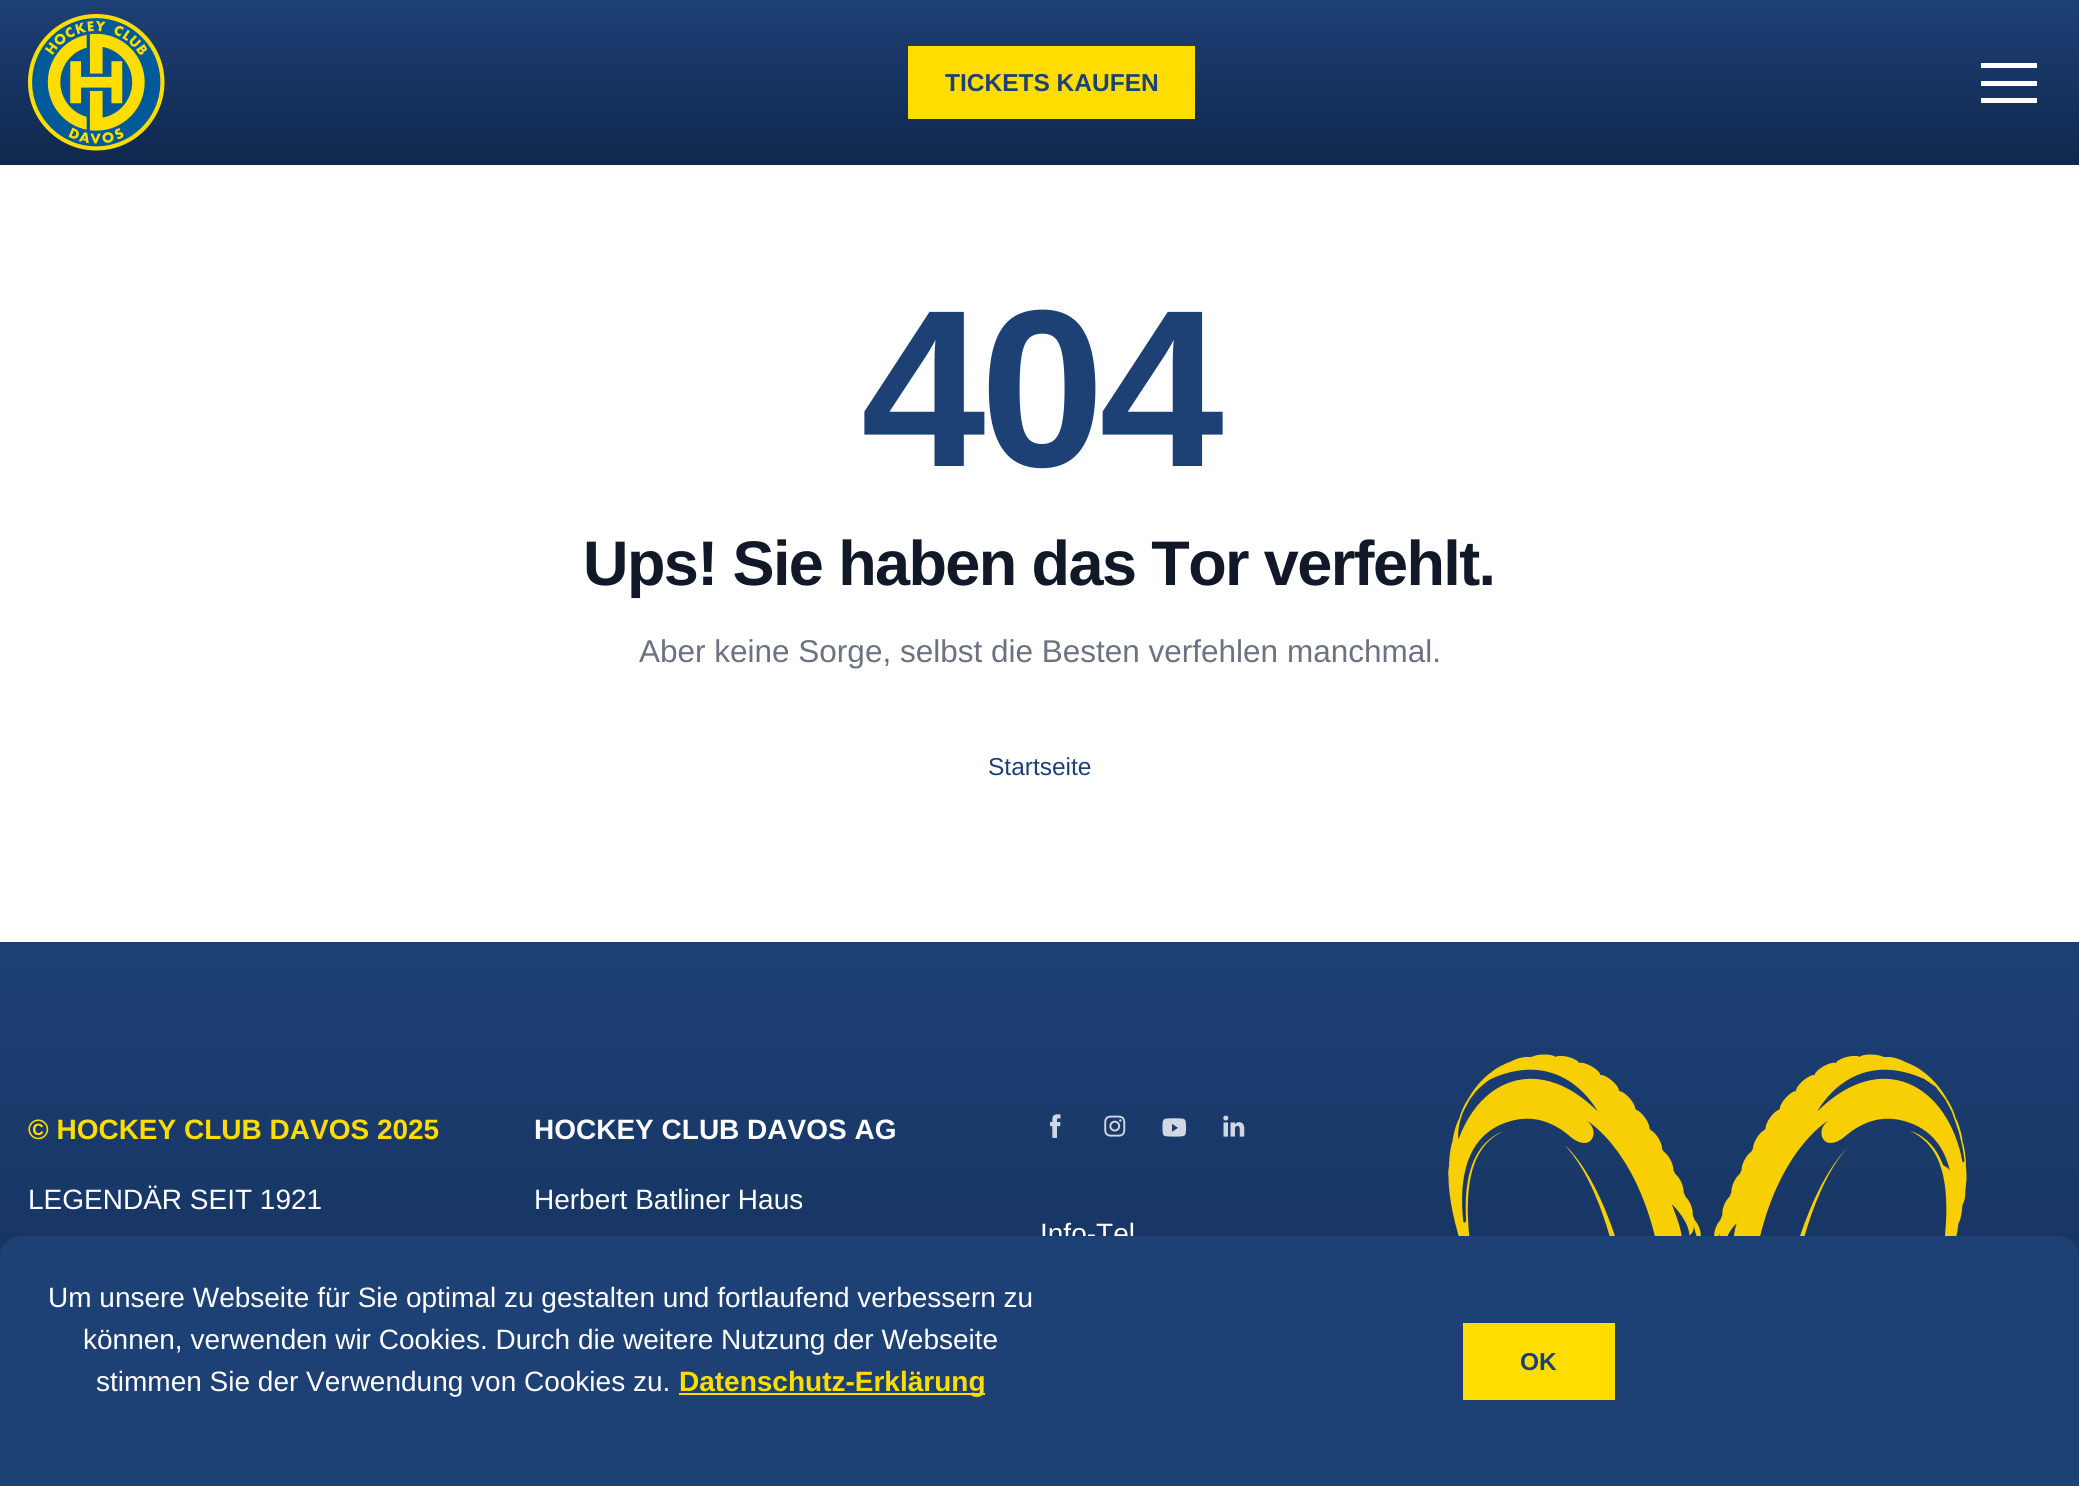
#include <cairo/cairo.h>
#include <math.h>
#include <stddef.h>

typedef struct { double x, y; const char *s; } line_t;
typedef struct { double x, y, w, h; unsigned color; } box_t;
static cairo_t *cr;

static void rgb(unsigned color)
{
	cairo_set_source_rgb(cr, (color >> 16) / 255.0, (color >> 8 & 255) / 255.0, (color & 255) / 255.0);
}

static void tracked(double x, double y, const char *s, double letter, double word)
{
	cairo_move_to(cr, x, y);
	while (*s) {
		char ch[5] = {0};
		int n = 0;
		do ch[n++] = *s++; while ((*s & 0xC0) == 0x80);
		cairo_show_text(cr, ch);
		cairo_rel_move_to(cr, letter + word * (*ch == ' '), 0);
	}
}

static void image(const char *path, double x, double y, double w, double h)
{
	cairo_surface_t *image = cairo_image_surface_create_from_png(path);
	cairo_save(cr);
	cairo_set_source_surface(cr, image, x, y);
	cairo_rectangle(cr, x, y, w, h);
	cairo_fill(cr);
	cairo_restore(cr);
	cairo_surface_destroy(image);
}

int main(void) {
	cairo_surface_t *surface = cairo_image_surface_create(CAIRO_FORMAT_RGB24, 2079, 1486);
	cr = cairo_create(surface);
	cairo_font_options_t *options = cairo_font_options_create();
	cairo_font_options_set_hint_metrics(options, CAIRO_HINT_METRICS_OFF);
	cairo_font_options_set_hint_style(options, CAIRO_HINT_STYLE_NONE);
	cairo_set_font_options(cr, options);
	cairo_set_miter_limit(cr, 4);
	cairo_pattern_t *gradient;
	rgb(0xffffff);
	cairo_paint(cr);
	gradient = cairo_pattern_create_linear(1040, 0, 1040, 165);
	cairo_pattern_add_color_stop_rgba(gradient, 0, 0.114, 0.251, 0.459, 1);
	cairo_pattern_add_color_stop_rgba(gradient, 1, 0.059, 0.157, 0.302, 1);
	cairo_set_source(cr, gradient);
	cairo_pattern_destroy(gradient);
	cairo_rectangle(cr, 0, 0, 2079, 165);
	cairo_fill(cr);
	image("img/1.png", 28, 14, 137, 137);
	{
		static const box_t items[] = {
			{908, 46, 287, 73, 0xffdd00},
			{1981, 63, 56, 5, 0xffffff},
			{1981, 81, 56, 5, 0xffffff},
			{1981, 98, 56, 5, 0xffffff},
		};
		for (size_t i = 0; i < sizeof items / sizeof *items; i++) {
			rgb(items[i].color);
			cairo_rectangle(cr, items[i].x, items[i].y, items[i].w, items[i].h);
			cairo_fill(cr);
		}
	}
	gradient = cairo_pattern_create_linear(1040, 941, 1040, 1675);
	cairo_pattern_add_color_stop_rgba(gradient, 0, 0.114, 0.251, 0.459, 1);
	cairo_pattern_add_color_stop_rgba(gradient, 1, 0.059, 0.157, 0.302, 1);
	cairo_set_source(cr, gradient);
	cairo_pattern_destroy(gradient);
	cairo_rectangle(cr, 0, 942, 2079, 315);
	cairo_fill(cr);
	image("img/2.png", 1050, 1114, 11, 24);
	image("img/3.png", 1104, 1115, 22, 22);
	image("img/4.png", 1162, 1118, 25, 19);
	image("img/5.png", 1223, 1115, 22, 22);
	image("img/6.png", 1448, 1054, 519, 182);
	cairo_select_font_face(cr, "Liberation Sans", CAIRO_FONT_SLANT_NORMAL, CAIRO_FONT_WEIGHT_BOLD);
	cairo_set_font_size(cr, 24.5);
	rgb(0x1d4075);
	cairo_move_to(cr, 945, 91);
	cairo_show_text(cr, "TICKETS KAUFEN");
	cairo_set_font_size(cr, 224);
	tracked(861, 466, "404", -5.5, 0);
	cairo_set_font_size(cr, 63);
	rgb(0x111827);
	tracked(583, 585, "Ups! Sie haben das Tor verfehlt.", -1.6, 0);
	cairo_select_font_face(cr, "Liberation Sans", CAIRO_FONT_SLANT_NORMAL, CAIRO_FONT_WEIGHT_NORMAL);
	cairo_set_font_size(cr, 31.5);
	rgb(0x6b7280);
	cairo_move_to(cr, 639, 662);
	cairo_show_text(cr, "Aber keine Sorge, selbst die Besten verfehlen manchmal.");
	cairo_set_font_size(cr, 24.5);
	rgb(0x1d4075);
	cairo_move_to(cr, 988, 775);
	cairo_show_text(cr, "Startseite");
	cairo_select_font_face(cr, "Liberation Sans", CAIRO_FONT_SLANT_NORMAL, CAIRO_FONT_WEIGHT_BOLD);
	cairo_set_font_size(cr, 28);
	rgb(0xffdd00);
	cairo_move_to(cr, 28, 1139);
	cairo_show_text(cr, "© HOCKEY CLUB DAVOS 2025");
	cairo_select_font_face(cr, "Liberation Sans", CAIRO_FONT_SLANT_NORMAL, CAIRO_FONT_WEIGHT_NORMAL);
	rgb(0xffffff);
	cairo_move_to(cr, 28, 1209);
	cairo_show_text(cr, "LEGENDÄR SEIT 1921");
	cairo_select_font_face(cr, "Liberation Sans", CAIRO_FONT_SLANT_NORMAL, CAIRO_FONT_WEIGHT_BOLD);
	cairo_move_to(cr, 534, 1139);
	cairo_show_text(cr, "HOCKEY CLUB DAVOS AG");
	cairo_select_font_face(cr, "Liberation Sans", CAIRO_FONT_SLANT_NORMAL, CAIRO_FONT_WEIGHT_NORMAL);
	cairo_move_to(cr, 534, 1209);
	cairo_show_text(cr, "Herbert Batliner Haus");
	cairo_move_to(cr, 1040, 1243);
	cairo_show_text(cr, "Info-Tel");
	rgb(0x1d4075);
	cairo_new_path(cr);
	cairo_move_to(cr, 21, 1236);
	cairo_line_to(cr, 2058, 1236);
	cairo_curve_to(cr, 2069.5, 1236, 2079, 1245.5, 2079, 1257);
	cairo_line_to(cr, 2079, 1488);
	cairo_line_to(cr, 0, 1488);
	cairo_line_to(cr, 0, 1257);
	cairo_curve_to(cr, 0, 1245.5, 9.5, 1236, 21, 1236);
	cairo_close_path(cr);
	cairo_fill(cr);
	rgb(0xffffff);
	{
		static const line_t items[] = {
			{48, 1307, "Um unsere Webseite für Sie optimal zu gestalten und fortlaufend verbessern zu"},
			{83, 1349, "können, verwenden wir Cookies. Durch die weitere Nutzung der Webseite"},
			{96, 1391, "stimmen Sie der Verwendung von Cookies zu."},
		};
		for (size_t i = 0; i < sizeof items / sizeof *items; i++) {
			cairo_move_to(cr, items[i].x, items[i].y);
			cairo_show_text(cr, items[i].s);
		}
	}
	rgb(0xffdd00);
	cairo_rectangle(cr, 679, 1393, 306, 2);
	cairo_fill(cr);
	cairo_select_font_face(cr, "Liberation Sans", CAIRO_FONT_SLANT_NORMAL, CAIRO_FONT_WEIGHT_BOLD);
	cairo_move_to(cr, 679, 1391);
	cairo_show_text(cr, "Datenschutz-Erklärung");
	cairo_rectangle(cr, 1463, 1323, 152, 77);
	cairo_fill(cr);
	cairo_set_font_size(cr, 24.5);
	rgb(0x1d4075);
	cairo_move_to(cr, 1520, 1370);
	cairo_show_text(cr, "OK");
	cairo_surface_write_to_png(surface, "page.png");
	cairo_font_options_destroy(options);
	cairo_destroy(cr);
	cairo_surface_destroy(surface);
	return 0;
}
